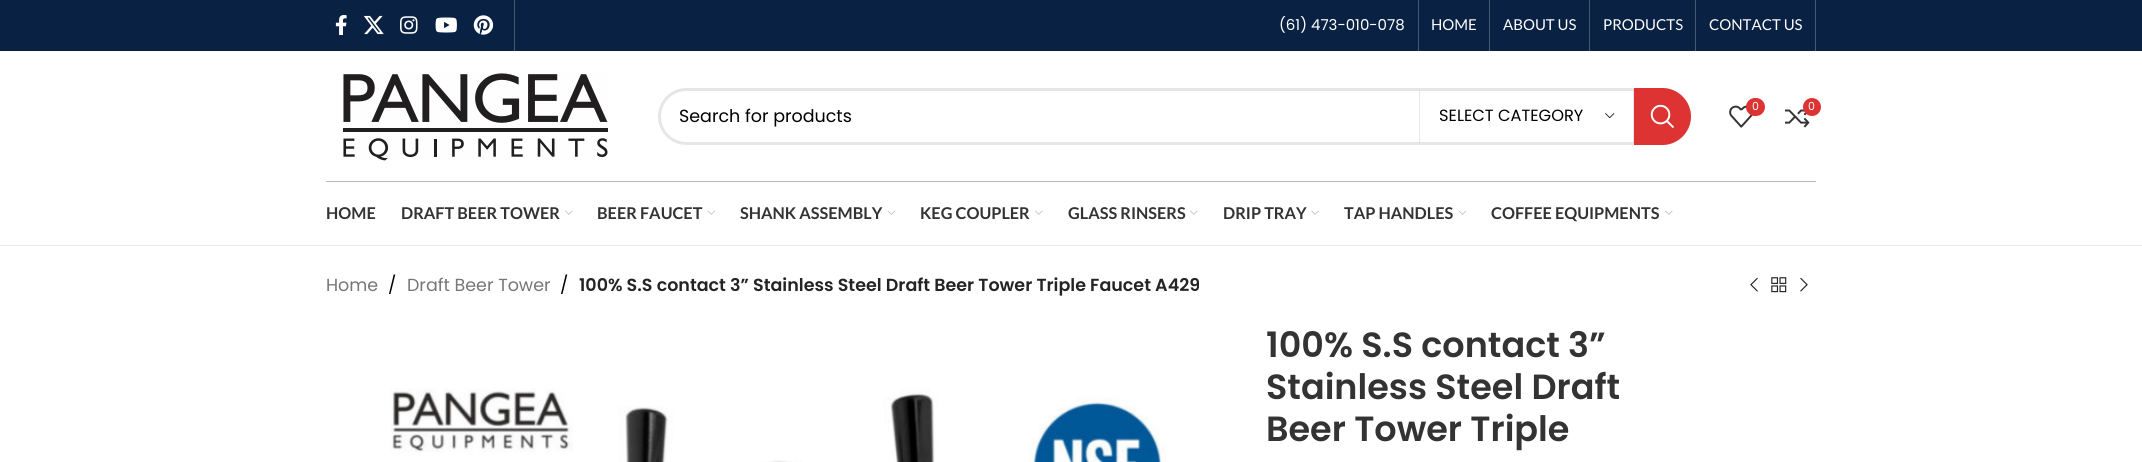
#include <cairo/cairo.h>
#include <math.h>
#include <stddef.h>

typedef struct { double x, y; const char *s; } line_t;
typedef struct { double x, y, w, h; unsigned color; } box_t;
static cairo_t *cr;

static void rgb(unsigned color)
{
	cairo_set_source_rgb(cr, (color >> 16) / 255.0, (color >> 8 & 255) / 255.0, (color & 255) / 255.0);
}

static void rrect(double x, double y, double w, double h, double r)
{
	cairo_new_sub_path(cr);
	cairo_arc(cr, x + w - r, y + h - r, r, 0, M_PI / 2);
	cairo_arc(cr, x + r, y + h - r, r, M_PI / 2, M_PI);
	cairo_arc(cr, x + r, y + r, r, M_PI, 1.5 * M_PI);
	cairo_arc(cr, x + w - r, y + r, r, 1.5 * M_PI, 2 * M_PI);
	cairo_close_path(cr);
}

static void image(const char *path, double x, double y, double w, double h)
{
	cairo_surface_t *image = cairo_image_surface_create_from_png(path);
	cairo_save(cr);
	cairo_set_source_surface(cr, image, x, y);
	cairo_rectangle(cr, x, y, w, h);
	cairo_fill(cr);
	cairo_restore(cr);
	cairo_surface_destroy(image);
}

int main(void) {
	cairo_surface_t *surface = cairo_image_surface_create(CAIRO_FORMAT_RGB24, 2142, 462);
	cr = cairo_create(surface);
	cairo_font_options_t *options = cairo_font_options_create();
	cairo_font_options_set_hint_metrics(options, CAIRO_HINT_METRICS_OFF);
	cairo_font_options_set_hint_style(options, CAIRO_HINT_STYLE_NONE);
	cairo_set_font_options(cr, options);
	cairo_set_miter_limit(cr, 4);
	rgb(0xffffff);
	cairo_paint(cr);
	rgb(0x092143);
	cairo_rectangle(cr, 0, 0, 2142, 51);
	cairo_fill(cr);
	image("img/1.png", 335, 15, 12, 20);
	image("img/2.png", 364, 15, 20, 20);
	image("img/3.png", 400, 16, 18, 18);
	image("img/4.png", 435, 17, 22, 16);
	image("img/5.png", 473, 15, 21, 20);
	{
		static const box_t items[] = {
			{514, 0, 1, 51, 0x475972},
			{1418, 0, 1, 51, 0x475972},
			{1489, 0, 1, 51, 0x475972},
			{1589, 0, 1, 51, 0x475972},
			{1695, 0, 1, 51, 0x475972},
			{1815, 0, 1, 51, 0x475972},
			{326, 181, 1490, 1, 0xbbbbbb},
		};
		for (size_t i = 0; i < sizeof items / sizeof *items; i++) {
			rgb(items[i].color);
			cairo_rectangle(cr, items[i].x, items[i].y, items[i].w, items[i].h);
			cairo_fill(cr);
		}
	}
	image("img/6.png", 343, 73, 265, 88);
	image("img/7.png", 1729, 105, 24, 23);
	rgb(0xdd3333);
	rrect(1746, 98, 19, 18, 9);
	cairo_fill(cr);
	image("img/8.png", 1785, 106, 25, 22);
	cairo_arc(cr, 1812, 107, 9, 0, 2 * M_PI);
	cairo_fill(cr);
	rrect(659.5, 89.5, 1030, 54, 27);
	rgb(0xe6e6e6);
	cairo_set_line_width(cr, 3);
	cairo_stroke(cr);
	cairo_set_source_rgba(cr, 0, 0, 0, 0.1);
	cairo_rectangle(cr, 1633, 90, 1, 53);
	cairo_fill(cr);
	cairo_rectangle(cr, 1419, 90, 1, 53);
	cairo_fill(cr);
	image("img/9.png", 1605, 113, 10, 6);
	rgb(0xdd3333);
	cairo_new_path(cr);
	cairo_move_to(cr, 1634, 88);
	cairo_line_to(cr, 1662.5, 88);
	cairo_curve_to(cr, 1678, 88, 1691, 101, 1691, 116.5);
	cairo_curve_to(cr, 1691, 132, 1678, 145, 1662.5, 145);
	cairo_line_to(cr, 1634, 145);
	cairo_close_path(cr);
	cairo_fill(cr);
	image("img/10.png", 1650, 104, 24, 25);
	rgb(0xe6e6e6);
	cairo_rectangle(cr, 0, 245, 2142, 1);
	cairo_fill(cr);
	image("img/11.png", 565, 210, 8, 5);
	image("img/12.png", 707, 210, 8, 5);
	image("img/12.png", 887, 210, 8, 5);
	image("img/11.png", 1035, 210, 8, 5);
	image("img/11.png", 1190, 210, 8, 5);
	image("img/13.png", 1311, 210, 8, 5);
	image("img/14.png", 1459, 210, 8, 5);
	image("img/11.png", 1665, 210, 8, 5);
	image("img/15.png", 1750, 277, 8, 15);
	image("img/16.png", 1771, 277, 16, 16);
	image("img/17.png", 1800, 277, 8, 15);
	image("img/18.png", 390, 388, 777, 74);
	cairo_select_font_face(cr, "Poppins", CAIRO_FONT_SLANT_NORMAL, CAIRO_FONT_WEIGHT_NORMAL);
	cairo_set_font_size(cr, 15);
	rgb(0xffffff);
	cairo_move_to(cr, 1279, 30);
	cairo_show_text(cr, "(61) 473-010-078");
	cairo_select_font_face(cr, "Lato", CAIRO_FONT_SLANT_NORMAL, CAIRO_FONT_WEIGHT_NORMAL);
	{
		static const line_t items[] = {
			{1431, 30, "HOME"},
			{1503, 30, "ABOUT US"},
			{1603, 30, "PRODUCTS"},
			{1709, 30, "CONTACT US"},
		};
		for (size_t i = 0; i < sizeof items / sizeof *items; i++) {
			cairo_move_to(cr, items[i].x, items[i].y);
			cairo_show_text(cr, items[i].s);
		}
	}
	cairo_select_font_face(cr, "Poppins", CAIRO_FONT_SLANT_NORMAL, CAIRO_FONT_WEIGHT_NORMAL);
	cairo_set_font_size(cr, 11);
	cairo_move_to(cr, 1752, 110);
	cairo_show_text(cr, "0");
	cairo_move_to(cr, 1808, 110);
	cairo_show_text(cr, "0");
	cairo_set_font_size(cr, 17.5);
	rgb(0x000000);
	cairo_move_to(cr, 679, 122);
	cairo_show_text(cr, "Search for products");
	cairo_set_font_size(cr, 16.25);
	cairo_move_to(cr, 1439, 121);
	cairo_show_text(cr, "SELECT CATEGORY");
	cairo_select_font_face(cr, "Lato", CAIRO_FONT_SLANT_NORMAL, CAIRO_FONT_WEIGHT_BOLD);
	rgb(0x333333);
	{
		static const line_t items[] = {
			{326, 219, "HOME"},
			{401, 219, "DRAFT BEER TOWER"},
			{597, 219, "BEER FAUCET"},
			{740, 219, "SHANK ASSEMBLY"},
			{920, 219, "KEG COUPLER"},
			{1068, 219, "GLASS RINSERS"},
			{1223, 219, "DRIP TRAY"},
			{1344, 219, "TAP HANDLES"},
			{1491, 219, "COFFEE EQUIPMENTS"},
		};
		for (size_t i = 0; i < sizeof items / sizeof *items; i++) {
			cairo_move_to(cr, items[i].x, items[i].y);
			cairo_show_text(cr, items[i].s);
		}
	}
	cairo_select_font_face(cr, "Poppins", CAIRO_FONT_SLANT_NORMAL, CAIRO_FONT_WEIGHT_NORMAL);
	cairo_set_font_size(cr, 17.5);
	rgb(0x767676);
	cairo_move_to(cr, 326, 291);
	cairo_show_text(cr, "Home");
	rgb(0x000000);
	cairo_move_to(cr, 388, 291);
	cairo_show_text(cr, "/");
	rgb(0x767676);
	cairo_move_to(cr, 407, 291);
	cairo_show_text(cr, "Draft Beer Tower");
	rgb(0x000000);
	cairo_move_to(cr, 560, 291);
	cairo_show_text(cr, "/");
	cairo_select_font_face(cr, "Poppins SemiBold", CAIRO_FONT_SLANT_NORMAL, CAIRO_FONT_WEIGHT_NORMAL);
	rgb(0x242424);
	cairo_move_to(cr, 579, 291);
	cairo_show_text(cr, "100% S.S contact 3” Stainless Steel Draft Beer Tower Triple Faucet A429");
	cairo_set_font_size(cr, 35);
	rgb(0x333333);
	{
		static const line_t items[] = {
			{1266, 357, "100% S.S contact 3”"},
			{1266, 399, "Stainless Steel Draft"},
			{1266, 441, "Beer Tower Triple"},
		};
		for (size_t i = 0; i < sizeof items / sizeof *items; i++) {
			cairo_move_to(cr, items[i].x, items[i].y);
			cairo_show_text(cr, items[i].s);
		}
	}
	cairo_surface_write_to_png(surface, "page.png");
	cairo_font_options_destroy(options);
	cairo_destroy(cr);
	cairo_surface_destroy(surface);
	return 0;
}
